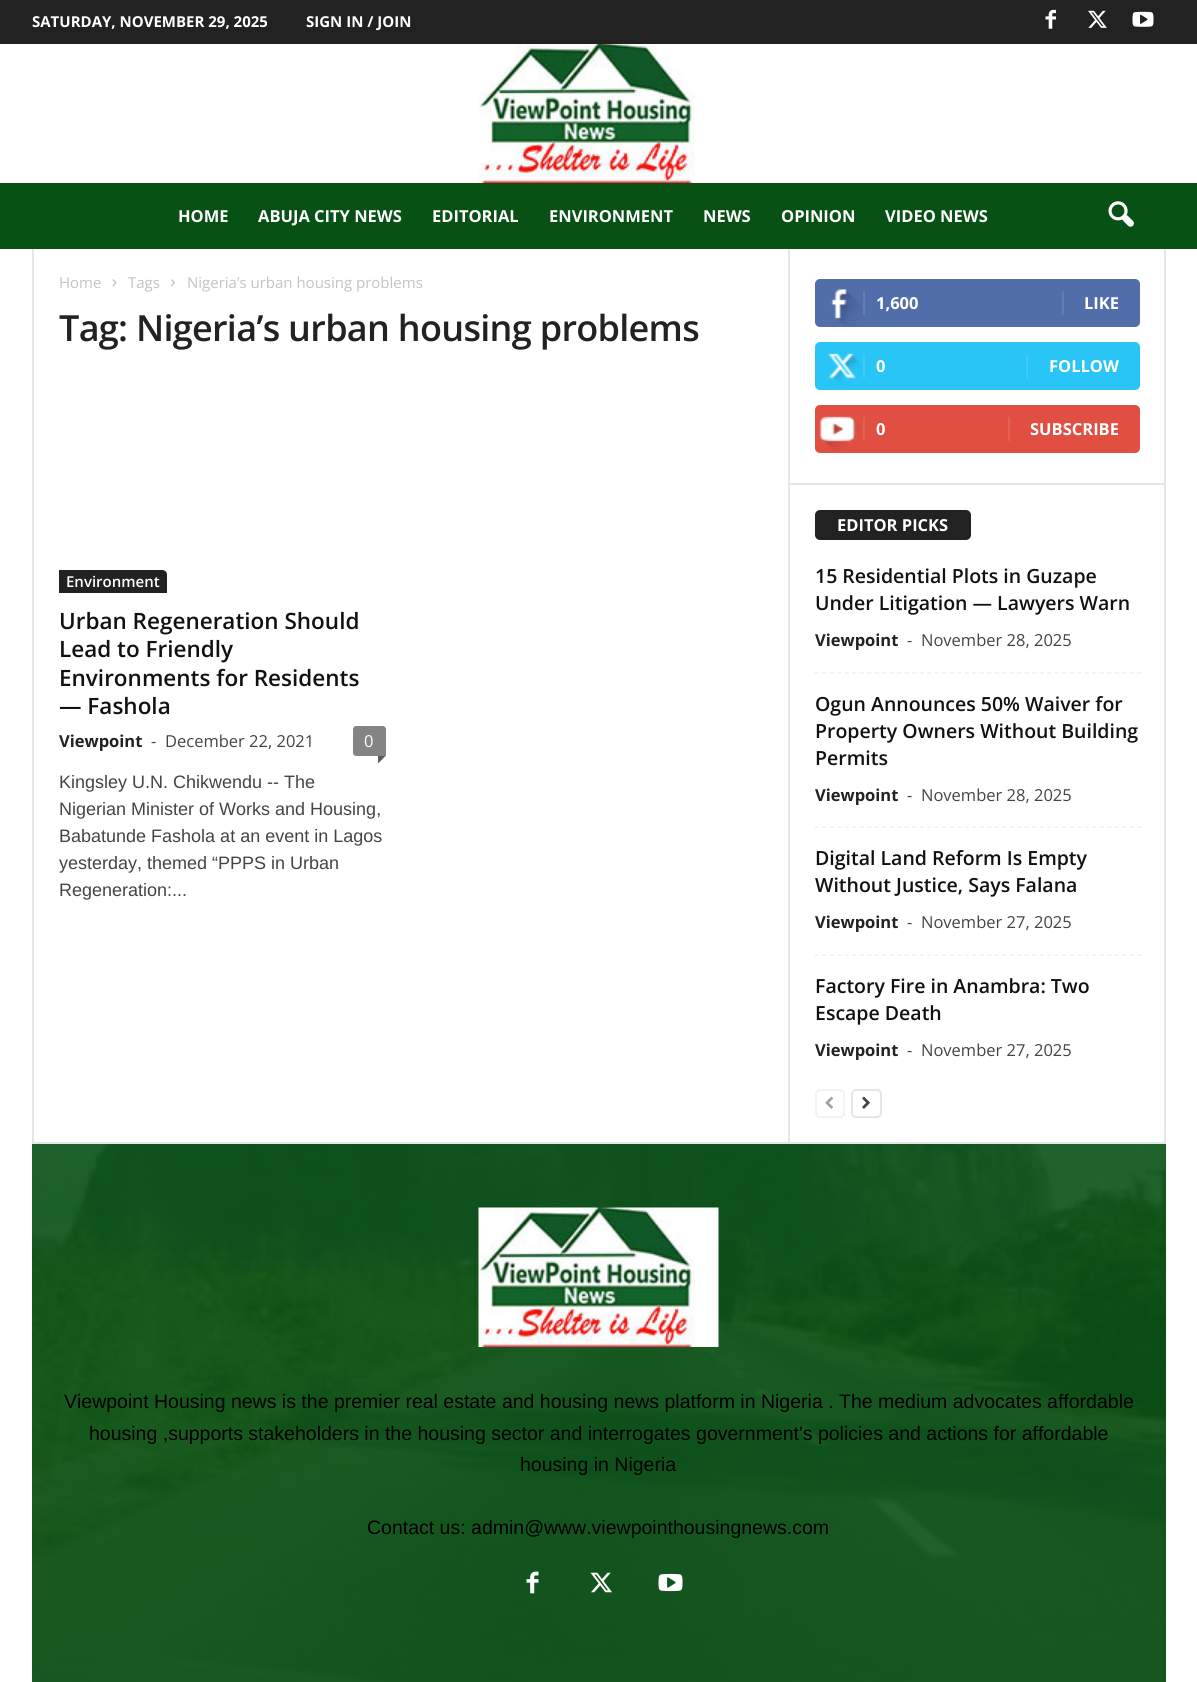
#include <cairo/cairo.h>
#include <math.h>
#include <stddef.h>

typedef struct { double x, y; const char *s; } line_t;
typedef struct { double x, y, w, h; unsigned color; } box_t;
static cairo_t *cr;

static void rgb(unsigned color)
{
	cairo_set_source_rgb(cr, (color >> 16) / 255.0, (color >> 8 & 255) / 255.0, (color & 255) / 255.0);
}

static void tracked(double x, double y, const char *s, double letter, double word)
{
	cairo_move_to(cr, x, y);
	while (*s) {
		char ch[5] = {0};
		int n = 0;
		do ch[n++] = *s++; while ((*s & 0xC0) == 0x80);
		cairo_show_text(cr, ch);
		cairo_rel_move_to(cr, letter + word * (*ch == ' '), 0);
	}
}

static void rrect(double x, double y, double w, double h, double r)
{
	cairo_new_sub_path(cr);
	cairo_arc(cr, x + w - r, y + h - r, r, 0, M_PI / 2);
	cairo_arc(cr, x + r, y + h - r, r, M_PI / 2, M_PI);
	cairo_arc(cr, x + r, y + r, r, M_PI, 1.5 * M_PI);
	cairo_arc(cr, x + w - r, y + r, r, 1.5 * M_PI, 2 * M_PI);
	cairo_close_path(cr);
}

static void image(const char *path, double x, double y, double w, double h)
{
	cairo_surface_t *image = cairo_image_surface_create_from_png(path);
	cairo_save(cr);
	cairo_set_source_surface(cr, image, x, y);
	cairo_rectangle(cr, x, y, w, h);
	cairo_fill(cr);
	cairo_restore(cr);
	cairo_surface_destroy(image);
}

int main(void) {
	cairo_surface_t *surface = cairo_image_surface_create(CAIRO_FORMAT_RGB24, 1197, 1682);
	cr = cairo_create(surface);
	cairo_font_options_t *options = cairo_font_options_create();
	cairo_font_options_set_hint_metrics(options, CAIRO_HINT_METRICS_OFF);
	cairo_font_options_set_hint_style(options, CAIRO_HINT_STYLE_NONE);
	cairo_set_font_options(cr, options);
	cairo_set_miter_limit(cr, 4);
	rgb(0xffffff);
	cairo_paint(cr);
	rgb(0x222222);
	cairo_rectangle(cr, 0, 0, 1197, 44);
	cairo_fill(cr);
	image("img/1.png", 1045, 9, 11, 20);
	image("img/2.png", 1088, 10, 19, 18);
	image("img/3.png", 1132, 11, 22, 16);
	image("img/4.png", 478, 44, 217, 139);
	rgb(0x085114);
	cairo_rectangle(cr, 0, 183, 1197, 66);
	cairo_fill(cr);
	image("img/5.png", 1108, 201, 26, 26);
	cairo_rectangle(cr, 32, 1144, 1134, 538);
	cairo_fill(cr);
	image("img/13.png", 31, 1143, 1135, 539);
	rgb(0xe6e6e6);
	cairo_rectangle(cr, 32, 1142, 1134, 2);
	cairo_fill(cr);
	cairo_rectangle(cr, 32, 249, 2, 893);
	cairo_fill(cr);
	image("img/6.png", 112, 279, 5, 8);
	image("img/7.png", 171, 279, 4, 8);
	rgb(0x222222);
	cairo_new_path(cr);
	cairo_move_to(cr, 59, 570);
	cairo_line_to(cr, 162, 570);
	cairo_curve_to(cr, 165, 570, 167, 572, 167, 575);
	cairo_line_to(cr, 167, 593);
	cairo_line_to(cr, 59, 593);
	cairo_close_path(cr);
	cairo_fill(cr);
	rgb(0x848484);
	cairo_new_path(cr);
	cairo_move_to(cr, 356, 726);
	cairo_line_to(cr, 383, 726);
	cairo_curve_to(cr, 384.5, 726, 386, 727.5, 386, 729);
	cairo_line_to(cr, 386, 756);
	cairo_line_to(cr, 356, 756);
	cairo_curve_to(cr, 354.5, 756, 353, 754.5, 353, 753);
	cairo_line_to(cr, 353, 729);
	cairo_curve_to(cr, 353, 727.5, 354.5, 726, 356, 726);
	cairo_close_path(cr);
	cairo_fill(cr);
	rgb(0x5b5b5b);
	cairo_new_path(cr);
	cairo_move_to(cr, 378, 756);
	cairo_line_to(cr, 385.5, 756);
	cairo_line_to(cr, 378, 763.5);
	cairo_close_path(cr);
	cairo_fill(cr);
	rgb(0xe6e6e6);
	cairo_rectangle(cr, 788, 249, 2, 893);
	cairo_fill(cr);
	rgb(0x516eab);
	rrect(815, 279, 325, 48, 5);
	cairo_fill(cr);
	image("img/8.png", 831, 289, 31, 38);
	rgb(0x627db3);
	cairo_rectangle(cr, 863, 291, 2, 24);
	cairo_fill(cr);
	cairo_rectangle(cr, 1062, 291, 2, 24);
	cairo_fill(cr);
	rgb(0x29c5f6);
	rrect(815, 342, 325, 48, 5);
	cairo_fill(cr);
	image("img/9.png", 827, 353, 35, 32);
	rgb(0x3ecbf7);
	cairo_rectangle(cr, 863, 354, 2, 24);
	cairo_fill(cr);
	cairo_rectangle(cr, 1026, 354, 2, 24);
	cairo_fill(cr);
	rgb(0xe14e42);
	rrect(815, 405, 325, 48, 5);
	cairo_fill(cr);
	image("img/10.png", 819, 416, 42, 36);
	{
		static const box_t items[] = {
			{863, 417, 2, 24, 0xe46055},
			{1008, 417, 2, 24, 0xe46055},
			{1164, 249, 2, 893, 0xe6e6e6},
			{789, 483, 377, 2, 0xe6e6e6},
		};
		for (size_t i = 0; i < sizeof items / sizeof *items; i++) {
			rgb(items[i].color);
			cairo_rectangle(cr, items[i].x, items[i].y, items[i].w, items[i].h);
			cairo_fill(cr);
		}
	}
	rgb(0x222222);
	rrect(815, 510, 156, 30, 5);
	cairo_fill(cr);
	cairo_new_path(cr);
	cairo_move_to(cr, 814.5, 673);
	cairo_line_to(cr, 1141.5, 673);
	rgb(0xf1f1f1);
	cairo_set_line_width(cr, 1.5);
	cairo_set_dash(cr, (double[]){4.5, 3}, 2, 0);
	cairo_stroke(cr);
	cairo_new_path(cr);
	cairo_move_to(cr, 814.5, 827);
	cairo_line_to(cr, 1141.5, 827);
	cairo_stroke(cr);
	cairo_new_path(cr);
	cairo_move_to(cr, 814.5, 955);
	cairo_line_to(cr, 1141.5, 955);
	cairo_stroke(cr);
	rrect(816, 1090, 28, 27, 4);
	rgb(0xf3f3f3);
	cairo_set_line_width(cr, 2);
	cairo_set_dash(cr, NULL, 0, 0);
	cairo_stroke(cr);
	image("img/11.png", 825, 1096, 8, 13);
	rrect(852, 1090, 29, 27, 4);
	rgb(0xe6e6e6);
	cairo_stroke(cr);
	image("img/12.png", 862, 1096, 8, 13);
	image("img/14.png", 478, 1207, 241, 140);
	image("img/15.png", 526, 1571, 13, 23);
	image("img/16.png", 590, 1572, 22, 21);
	image("img/17.png", 658, 1573, 25, 19);
	cairo_select_font_face(cr, "Open Sans", CAIRO_FONT_SLANT_NORMAL, CAIRO_FONT_WEIGHT_BOLD);
	cairo_set_font_size(cr, 15);
	rgb(0xffffff);
	cairo_move_to(cr, 32, 27);
	cairo_show_text(cr, "SATURDAY, NOVEMBER 29, 2025");
	cairo_move_to(cr, 306, 27);
	cairo_show_text(cr, "SIGN IN / JOIN");
	cairo_set_font_size(cr, 16.5);
	{
		static const line_t items[] = {
			{178, 222, "HOME"},
			{258, 222, "ABUJA CITY NEWS"},
			{432, 222, "EDITORIAL"},
			{549, 222, "ENVIRONMENT"},
			{703, 222, "NEWS"},
			{781, 222, "OPINION"},
			{885, 222, "VIDEO NEWS"},
		};
		for (size_t i = 0; i < sizeof items / sizeof *items; i++) {
			cairo_move_to(cr, items[i].x, items[i].y);
			cairo_show_text(cr, items[i].s);
		}
	}
	cairo_select_font_face(cr, "Open Sans", CAIRO_FONT_SLANT_NORMAL, CAIRO_FONT_WEIGHT_NORMAL);
	cairo_set_font_size(cr, 15);
	rgb(0xc3c3c3);
	{
		static const line_t items[] = {
			{59, 288, "Home"},
			{128, 288, "Tags"},
			{187, 288, "Nigeria’s urban housing problems"},
		};
		for (size_t i = 0; i < sizeof items / sizeof *items; i++) {
			cairo_move_to(cr, items[i].x, items[i].y);
			cairo_show_text(cr, items[i].s);
		}
	}
	cairo_select_font_face(cr, "Open Sans SemiBold", CAIRO_FONT_SLANT_NORMAL, CAIRO_FONT_WEIGHT_NORMAL);
	cairo_set_font_size(cr, 36);
	rgb(0x222222);
	tracked(59, 341, "Tag: Nigeria’s urban housing problems", -0.7, 0);
	cairo_set_font_size(cr, 15);
	rgb(0xffffff);
	cairo_move_to(cr, 66, 587);
	cairo_show_text(cr, "Environment");
	cairo_set_font_size(cr, 22.5);
	rgb(0x111111);
	{
		static const line_t items[] = {
			{59, 629, "Urban Regeneration Should"},
			{59, 657, "Lead to Friendly"},
			{59, 686, "Environments for Residents"},
			{59, 714, "— Fashola"},
		};
		for (size_t i = 0; i < sizeof items / sizeof *items; i++) {
			cairo_move_to(cr, items[i].x, items[i].y);
			cairo_show_text(cr, items[i].s);
		}
	}
	cairo_select_font_face(cr, "Open Sans", CAIRO_FONT_SLANT_NORMAL, CAIRO_FONT_WEIGHT_BOLD);
	cairo_set_font_size(cr, 16.5);
	rgb(0x222222);
	cairo_move_to(cr, 59, 747);
	cairo_show_text(cr, "Viewpoint");
	cairo_select_font_face(cr, "Open Sans", CAIRO_FONT_SLANT_NORMAL, CAIRO_FONT_WEIGHT_NORMAL);
	rgb(0x444444);
	cairo_move_to(cr, 151, 747);
	cairo_show_text(cr, "-");
	cairo_move_to(cr, 165, 747);
	cairo_show_text(cr, "December 22, 2021");
	rgb(0xffffff);
	cairo_move_to(cr, 364, 747);
	cairo_show_text(cr, "0");
	cairo_select_font_face(cr, "Liberation Sans", CAIRO_FONT_SLANT_NORMAL, CAIRO_FONT_WEIGHT_NORMAL);
	cairo_set_font_size(cr, 18);
	rgb(0x444444);
	{
		static const line_t items[] = {
			{59, 788, "Kingsley U.N. Chikwendu -- The"},
			{59, 815, "Nigerian Minister of Works and Housing,"},
			{59, 842, "Babatunde Fashola at an event in Lagos"},
			{59, 869, "yesterday, themed “PPPS in Urban"},
			{59, 896, "Regeneration:..."},
		};
		for (size_t i = 0; i < sizeof items / sizeof *items; i++) {
			cairo_move_to(cr, items[i].x, items[i].y);
			cairo_show_text(cr, items[i].s);
		}
	}
	cairo_select_font_face(cr, "Open Sans", CAIRO_FONT_SLANT_NORMAL, CAIRO_FONT_WEIGHT_BOLD);
	cairo_set_font_size(cr, 16.5);
	rgb(0xffffff);
	{
		static const line_t items[] = {
			{876, 309, "1,600"},
			{1084, 309, "LIKE"},
			{876, 372, "0"},
			{1049, 372, "FOLLOW"},
			{876, 435, "0"},
			{1030, 435, "SUBSCRIBE"},
			{837, 531, "EDITOR PICKS"},
		};
		for (size_t i = 0; i < sizeof items / sizeof *items; i++) {
			cairo_move_to(cr, items[i].x, items[i].y);
			cairo_show_text(cr, items[i].s);
		}
	}
	cairo_select_font_face(cr, "Open Sans SemiBold", CAIRO_FONT_SLANT_NORMAL, CAIRO_FONT_WEIGHT_NORMAL);
	cairo_set_font_size(cr, 19.5);
	rgb(0x111111);
	cairo_move_to(cr, 815, 583);
	cairo_show_text(cr, "15 Residential Plots in Guzape");
	cairo_move_to(cr, 815, 610);
	cairo_show_text(cr, "Under Litigation — Lawyers Warn");
	cairo_select_font_face(cr, "Open Sans", CAIRO_FONT_SLANT_NORMAL, CAIRO_FONT_WEIGHT_BOLD);
	cairo_set_font_size(cr, 16.5);
	rgb(0x222222);
	cairo_move_to(cr, 815, 646);
	cairo_show_text(cr, "Viewpoint");
	cairo_select_font_face(cr, "Open Sans", CAIRO_FONT_SLANT_NORMAL, CAIRO_FONT_WEIGHT_NORMAL);
	rgb(0x444444);
	cairo_move_to(cr, 907, 646);
	cairo_show_text(cr, "-");
	cairo_move_to(cr, 921, 646);
	cairo_show_text(cr, "November 28, 2025");
	cairo_select_font_face(cr, "Open Sans SemiBold", CAIRO_FONT_SLANT_NORMAL, CAIRO_FONT_WEIGHT_NORMAL);
	cairo_set_font_size(cr, 19.5);
	rgb(0x111111);
	{
		static const line_t items[] = {
			{815, 711, "Ogun Announces 50% Waiver for"},
			{815, 738, "Property Owners Without Building"},
			{815, 765, "Permits"},
		};
		for (size_t i = 0; i < sizeof items / sizeof *items; i++) {
			cairo_move_to(cr, items[i].x, items[i].y);
			cairo_show_text(cr, items[i].s);
		}
	}
	cairo_select_font_face(cr, "Open Sans", CAIRO_FONT_SLANT_NORMAL, CAIRO_FONT_WEIGHT_BOLD);
	cairo_set_font_size(cr, 16.5);
	rgb(0x222222);
	cairo_move_to(cr, 815, 801);
	cairo_show_text(cr, "Viewpoint");
	cairo_select_font_face(cr, "Open Sans", CAIRO_FONT_SLANT_NORMAL, CAIRO_FONT_WEIGHT_NORMAL);
	rgb(0x444444);
	cairo_move_to(cr, 907, 801);
	cairo_show_text(cr, "-");
	cairo_move_to(cr, 921, 801);
	cairo_show_text(cr, "November 28, 2025");
	cairo_select_font_face(cr, "Open Sans SemiBold", CAIRO_FONT_SLANT_NORMAL, CAIRO_FONT_WEIGHT_NORMAL);
	cairo_set_font_size(cr, 19.5);
	rgb(0x111111);
	cairo_move_to(cr, 815, 865);
	cairo_show_text(cr, "Digital Land Reform Is Empty");
	cairo_move_to(cr, 815, 892);
	cairo_show_text(cr, "Without Justice, Says Falana");
	cairo_select_font_face(cr, "Open Sans", CAIRO_FONT_SLANT_NORMAL, CAIRO_FONT_WEIGHT_BOLD);
	cairo_set_font_size(cr, 16.5);
	rgb(0x222222);
	cairo_move_to(cr, 815, 928);
	cairo_show_text(cr, "Viewpoint");
	cairo_select_font_face(cr, "Open Sans", CAIRO_FONT_SLANT_NORMAL, CAIRO_FONT_WEIGHT_NORMAL);
	rgb(0x444444);
	cairo_move_to(cr, 907, 928);
	cairo_show_text(cr, "-");
	cairo_move_to(cr, 921, 928);
	cairo_show_text(cr, "November 27, 2025");
	cairo_select_font_face(cr, "Open Sans SemiBold", CAIRO_FONT_SLANT_NORMAL, CAIRO_FONT_WEIGHT_NORMAL);
	cairo_set_font_size(cr, 19.5);
	rgb(0x111111);
	cairo_move_to(cr, 815, 993);
	cairo_show_text(cr, "Factory Fire in Anambra: Two");
	cairo_move_to(cr, 815, 1020);
	cairo_show_text(cr, "Escape Death");
	cairo_select_font_face(cr, "Open Sans", CAIRO_FONT_SLANT_NORMAL, CAIRO_FONT_WEIGHT_BOLD);
	cairo_set_font_size(cr, 16.5);
	rgb(0x222222);
	cairo_move_to(cr, 815, 1056);
	cairo_show_text(cr, "Viewpoint");
	cairo_select_font_face(cr, "Open Sans", CAIRO_FONT_SLANT_NORMAL, CAIRO_FONT_WEIGHT_NORMAL);
	rgb(0x444444);
	cairo_move_to(cr, 907, 1056);
	cairo_show_text(cr, "-");
	cairo_move_to(cr, 921, 1056);
	cairo_show_text(cr, "November 27, 2025");
	cairo_select_font_face(cr, "Liberation Sans", CAIRO_FONT_SLANT_NORMAL, CAIRO_FONT_WEIGHT_NORMAL);
	cairo_set_font_size(cr, 19.5);
	rgb(0x000000);
	{
		static const line_t items[] = {
			{64, 1408, "Viewpoint Housing news is the premier real estate and housing news platform in Nigeria . The medium advocates affordable"},
			{89, 1440, "housing ,supports stakeholders in the housing sector and interrogates government's policies and actions for affordable"},
			{520, 1471, "housing in Nigeria"},
			{367, 1534, "Contact us: admin@www.viewpointhousingnews.com"},
		};
		for (size_t i = 0; i < sizeof items / sizeof *items; i++) {
			cairo_move_to(cr, items[i].x, items[i].y);
			cairo_show_text(cr, items[i].s);
		}
	}
	cairo_surface_write_to_png(surface, "page.png");
	cairo_font_options_destroy(options);
	cairo_destroy(cr);
	cairo_surface_destroy(surface);
	return 0;
}
